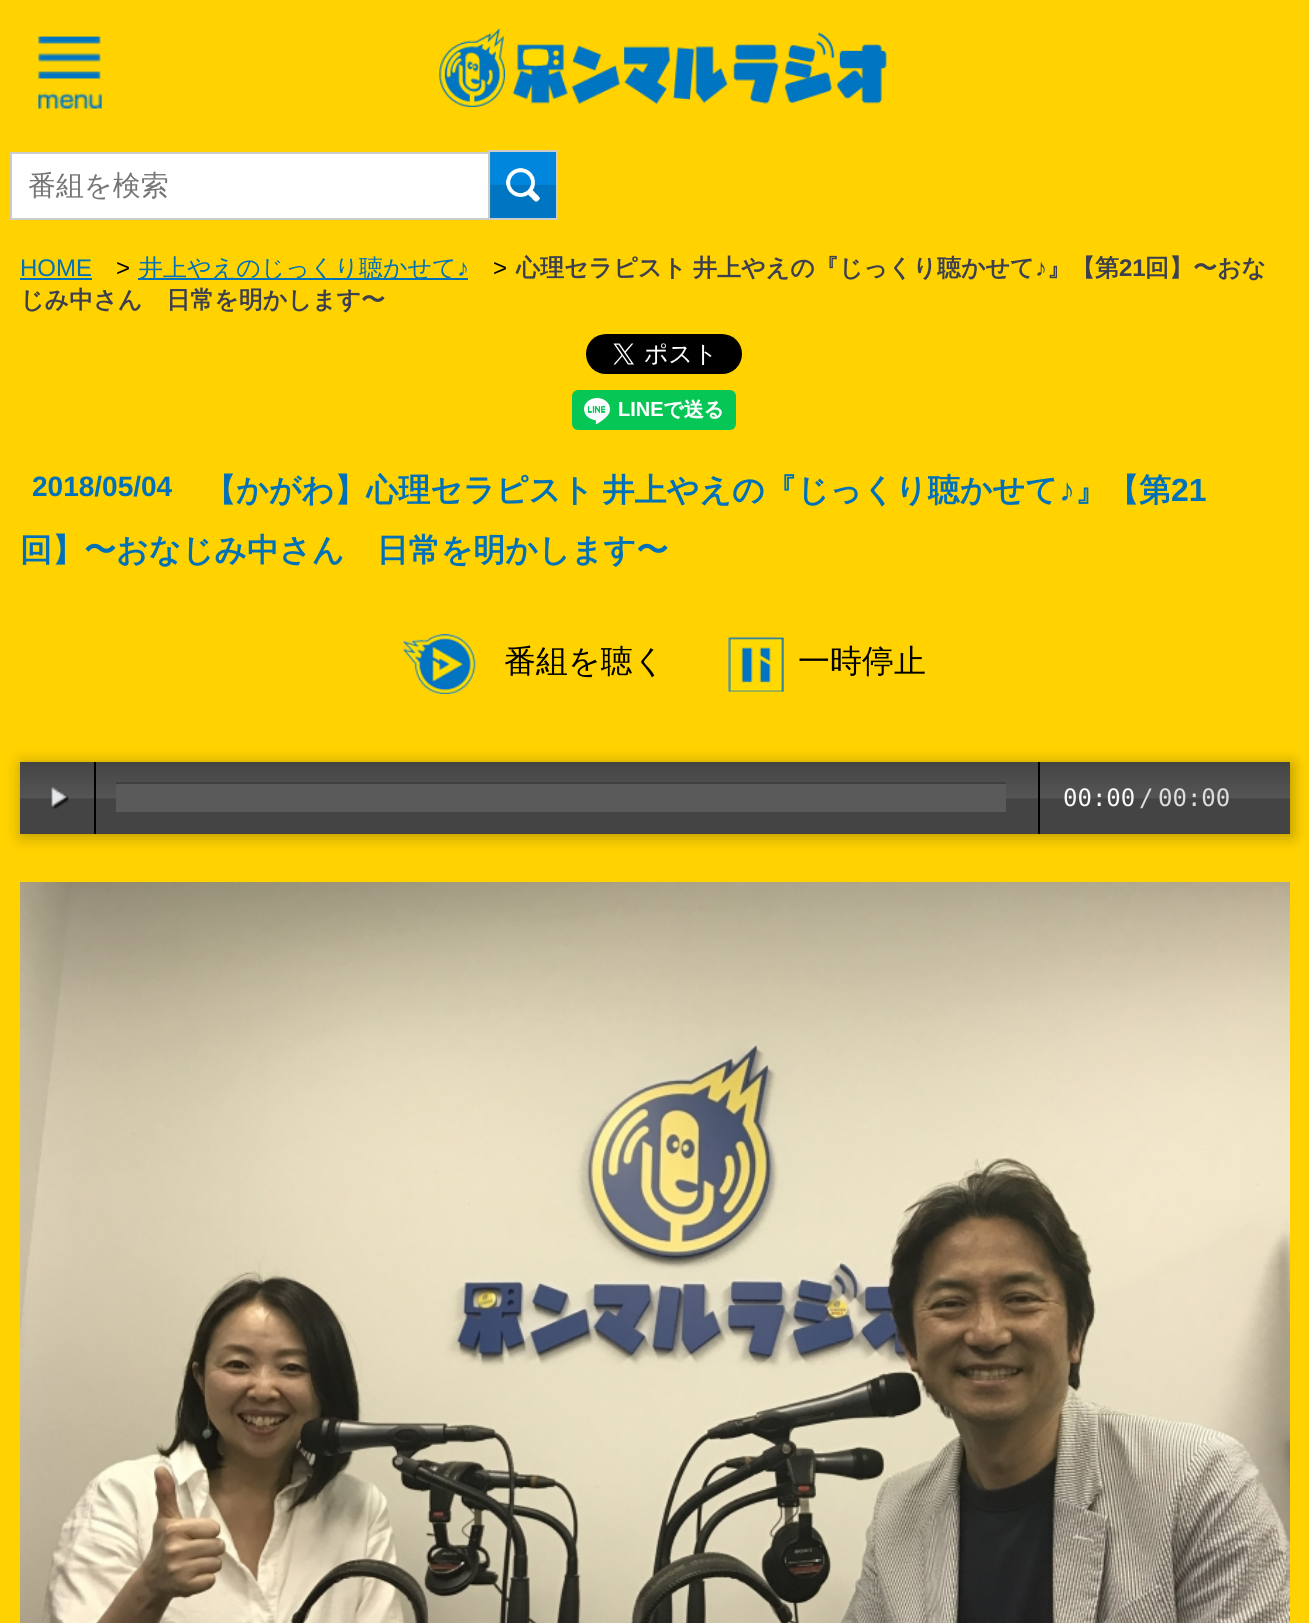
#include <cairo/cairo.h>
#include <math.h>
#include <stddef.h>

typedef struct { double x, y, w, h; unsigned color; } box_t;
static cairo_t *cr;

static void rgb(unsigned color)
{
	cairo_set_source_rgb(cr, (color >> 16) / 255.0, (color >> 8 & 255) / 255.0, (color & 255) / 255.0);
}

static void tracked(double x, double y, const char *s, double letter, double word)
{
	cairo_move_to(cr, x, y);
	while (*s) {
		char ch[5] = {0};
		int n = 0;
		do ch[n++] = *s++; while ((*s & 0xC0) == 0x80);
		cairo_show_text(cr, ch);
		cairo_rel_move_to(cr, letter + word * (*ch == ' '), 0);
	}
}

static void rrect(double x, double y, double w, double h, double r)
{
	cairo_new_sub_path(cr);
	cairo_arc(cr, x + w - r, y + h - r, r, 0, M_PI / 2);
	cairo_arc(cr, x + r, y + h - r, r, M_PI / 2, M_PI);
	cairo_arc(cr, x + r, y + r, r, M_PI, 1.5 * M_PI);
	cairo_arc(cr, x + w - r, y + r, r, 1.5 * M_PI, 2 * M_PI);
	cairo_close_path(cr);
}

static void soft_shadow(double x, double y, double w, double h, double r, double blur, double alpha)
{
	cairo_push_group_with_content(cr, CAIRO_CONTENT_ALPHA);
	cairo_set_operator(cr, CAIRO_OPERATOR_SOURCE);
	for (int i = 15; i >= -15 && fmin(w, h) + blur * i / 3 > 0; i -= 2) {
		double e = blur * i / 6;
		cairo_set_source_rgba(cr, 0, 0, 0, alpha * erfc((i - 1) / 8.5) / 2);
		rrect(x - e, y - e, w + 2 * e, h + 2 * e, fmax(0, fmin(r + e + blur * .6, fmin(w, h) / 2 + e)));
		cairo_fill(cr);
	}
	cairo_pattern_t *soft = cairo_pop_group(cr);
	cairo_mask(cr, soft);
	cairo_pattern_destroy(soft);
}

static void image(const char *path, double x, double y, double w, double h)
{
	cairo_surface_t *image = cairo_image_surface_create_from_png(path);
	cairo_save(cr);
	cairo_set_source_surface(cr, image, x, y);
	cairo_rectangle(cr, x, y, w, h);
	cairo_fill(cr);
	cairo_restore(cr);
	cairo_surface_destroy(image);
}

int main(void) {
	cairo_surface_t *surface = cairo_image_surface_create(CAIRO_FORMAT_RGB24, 1309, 1623);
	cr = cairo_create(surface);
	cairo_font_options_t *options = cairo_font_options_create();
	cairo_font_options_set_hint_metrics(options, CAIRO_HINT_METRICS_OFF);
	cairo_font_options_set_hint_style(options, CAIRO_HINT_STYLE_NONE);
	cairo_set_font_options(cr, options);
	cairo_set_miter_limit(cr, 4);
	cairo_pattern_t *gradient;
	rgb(0xffd200);
	cairo_paint(cr);
	image("img/1.png", 439, 28, 448, 79);
	rgb(0xffffff);
	cairo_rectangle(cr, 11, 153, 478, 66);
	cairo_fill_preserve(cr);
	rgb(0xcccccc);
	cairo_stroke(cr);
	image("img/2.png", 490, 152, 66, 66);
	cairo_rectangle(cr, 489, 151, 68, 68);
	cairo_stroke(cr);
	image("img/3.png", 38, 36, 64, 73);
	rgb(0x0071b9);
	cairo_rectangle(cr, 20, 278, 72, 2);
	cairo_fill(cr);
	cairo_rectangle(cr, 138, 278, 330, 2);
	cairo_fill(cr);
	image("img/4.png", 586, 334, 156, 40);
	image("img/5.png", 572, 390, 164, 40);
	image("img/6.png", 402, 634, 74, 60);
	image("img/7.png", 728, 636, 56, 56);
	rgb(0x000000);
	soft_shadow(22, 764, 1270, 72, 0, 8, 0.3);
	gradient = cairo_pattern_create_linear(20, 762, 20, 834);
	cairo_pattern_add_color_stop_rgba(gradient, 0, 0.267, 0.267, 0.267, 1);
	cairo_pattern_add_color_stop_rgba(gradient, 0.5, 0.333, 0.333, 0.333, 1);
	cairo_pattern_add_color_stop_rgba(gradient, 0.51, 0.267, 0.267, 0.267, 1);
	cairo_pattern_add_color_stop_rgba(gradient, 1, 0.267, 0.267, 0.267, 1);
	cairo_set_source(cr, gradient);
	cairo_pattern_destroy(gradient);
	cairo_rectangle(cr, 20, 762, 1270, 72);
	cairo_fill(cr);
	rgb(0x000000);
	cairo_rectangle(cr, 94, 762, 2, 72);
	cairo_fill(cr);
	image("img/8.png", 51, 787, 18, 22);
	{
		static const box_t items[] = {
			{116, 784, 890, 28, 0x5a5a5a},
			{116, 782, 890, 2, 0x3f3f3f},
			{1038, 762, 2, 72, 0x000000},
		};
		for (size_t i = 0; i < sizeof items / sizeof *items; i++) {
			rgb(items[i].color);
			cairo_rectangle(cr, items[i].x, items[i].y, items[i].w, items[i].h);
			cairo_fill(cr);
		}
	}
	image("img/9.png", 20, 882, 1270, 741);
	cairo_select_font_face(cr, "WenQuanYi Zen Hei Medium", CAIRO_FONT_SLANT_NORMAL, CAIRO_FONT_WEIGHT_NORMAL);
	cairo_set_font_size(cr, 28);
	rgb(0x757575);
	cairo_move_to(cr, 28, 195);
	cairo_show_text(cr, "番組を検索");
	cairo_select_font_face(cr, "Liberation Sans", CAIRO_FONT_SLANT_NORMAL, CAIRO_FONT_WEIGHT_NORMAL);
	cairo_set_font_size(cr, 24);
	rgb(0x0071b9);
	cairo_move_to(cr, 20, 276);
	cairo_show_text(cr, "HOME");
	rgb(0x000000);
	cairo_move_to(cr, 116, 276);
	cairo_show_text(cr, ">");
	cairo_select_font_face(cr, "WenQuanYi Zen Hei Medium", CAIRO_FONT_SLANT_NORMAL, CAIRO_FONT_WEIGHT_NORMAL);
	rgb(0x0071b9);
	cairo_move_to(cr, 139, 276);
	cairo_show_text(cr, "井上やえのじっくり聴かせて");
	cairo_select_font_face(cr, "Liberation Sans", CAIRO_FONT_SLANT_NORMAL, CAIRO_FONT_WEIGHT_NORMAL);
	cairo_move_to(cr, 457, 276);
	cairo_show_text(cr, "♪");
	rgb(0x000000);
	cairo_move_to(cr, 493, 276);
	cairo_show_text(cr, ">");
	cairo_select_font_face(cr, "WenQuanYi Zen Hei", CAIRO_FONT_SLANT_NORMAL, CAIRO_FONT_WEIGHT_BOLD);
	rgb(0x3b3f4f);
	tracked(516, 276, "心理セラピスト 井上やえの『じっくり聴かせて", 0, -1);
	cairo_select_font_face(cr, "Liberation Sans", CAIRO_FONT_SLANT_NORMAL, CAIRO_FONT_WEIGHT_BOLD);
	cairo_move_to(cr, 1035, 276);
	cairo_show_text(cr, "♪");
	cairo_select_font_face(cr, "WenQuanYi Zen Hei", CAIRO_FONT_SLANT_NORMAL, CAIRO_FONT_WEIGHT_BOLD);
	cairo_move_to(cr, 1047, 276);
	cairo_show_text(cr, "』【第");
	cairo_select_font_face(cr, "Liberation Sans", CAIRO_FONT_SLANT_NORMAL, CAIRO_FONT_WEIGHT_BOLD);
	cairo_move_to(cr, 1119, 276);
	cairo_show_text(cr, "21");
	cairo_select_font_face(cr, "WenQuanYi Zen Hei", CAIRO_FONT_SLANT_NORMAL, CAIRO_FONT_WEIGHT_BOLD);
	cairo_move_to(cr, 1145, 276);
	cairo_show_text(cr, "回】〜おな");
	cairo_move_to(cr, 20, 308);
	cairo_show_text(cr, "じみ中さん　日常を明かします〜");
	cairo_select_font_face(cr, "Liberation Sans", CAIRO_FONT_SLANT_NORMAL, CAIRO_FONT_WEIGHT_BOLD);
	cairo_set_font_size(cr, 28);
	rgb(0x0071b9);
	cairo_move_to(cr, 32, 496);
	cairo_show_text(cr, "2018/05/04");
	cairo_select_font_face(cr, "WenQuanYi Zen Hei", CAIRO_FONT_SLANT_NORMAL, CAIRO_FONT_WEIGHT_BOLD);
	cairo_set_font_size(cr, 32);
	tracked(204, 501, "【かがわ】心理セラピスト 井上やえの『じっくり聴かせて", 0, -1);
	cairo_select_font_face(cr, "Liberation Sans", CAIRO_FONT_SLANT_NORMAL, CAIRO_FONT_WEIGHT_BOLD);
	cairo_move_to(cr, 1059, 501);
	cairo_show_text(cr, "♪");
	cairo_select_font_face(cr, "WenQuanYi Zen Hei", CAIRO_FONT_SLANT_NORMAL, CAIRO_FONT_WEIGHT_BOLD);
	cairo_move_to(cr, 1075, 501);
	cairo_show_text(cr, "』【第");
	cairo_select_font_face(cr, "Liberation Sans", CAIRO_FONT_SLANT_NORMAL, CAIRO_FONT_WEIGHT_BOLD);
	cairo_move_to(cr, 1171, 501);
	cairo_show_text(cr, "21");
	cairo_select_font_face(cr, "WenQuanYi Zen Hei", CAIRO_FONT_SLANT_NORMAL, CAIRO_FONT_WEIGHT_BOLD);
	cairo_move_to(cr, 20, 561);
	cairo_show_text(cr, "回】〜おなじみ中さん　日常を明かします〜");
	cairo_select_font_face(cr, "WenQuanYi Zen Hei Medium", CAIRO_FONT_SLANT_NORMAL, CAIRO_FONT_WEIGHT_NORMAL);
	rgb(0x000000);
	cairo_move_to(cr, 504, 672);
	cairo_show_text(cr, "番組を聴く");
	cairo_move_to(cr, 798, 672);
	cairo_show_text(cr, "一時停止");
	cairo_select_font_face(cr, "DejaVu Sans Mono", CAIRO_FONT_SLANT_NORMAL, CAIRO_FONT_WEIGHT_NORMAL);
	cairo_set_font_size(cr, 24);
	rgb(0xf9f9f9);
	cairo_move_to(cr, 1063, 806);
	cairo_show_text(cr, "00:00");
	rgb(0xdddddd);
	cairo_move_to(cr, 1139, 806);
	cairo_show_text(cr, "/");
	cairo_move_to(cr, 1158, 806);
	cairo_show_text(cr, "00:00");
	cairo_surface_write_to_png(surface, "page.png");
	cairo_font_options_destroy(options);
	cairo_destroy(cr);
	cairo_surface_destroy(surface);
	return 0;
}
